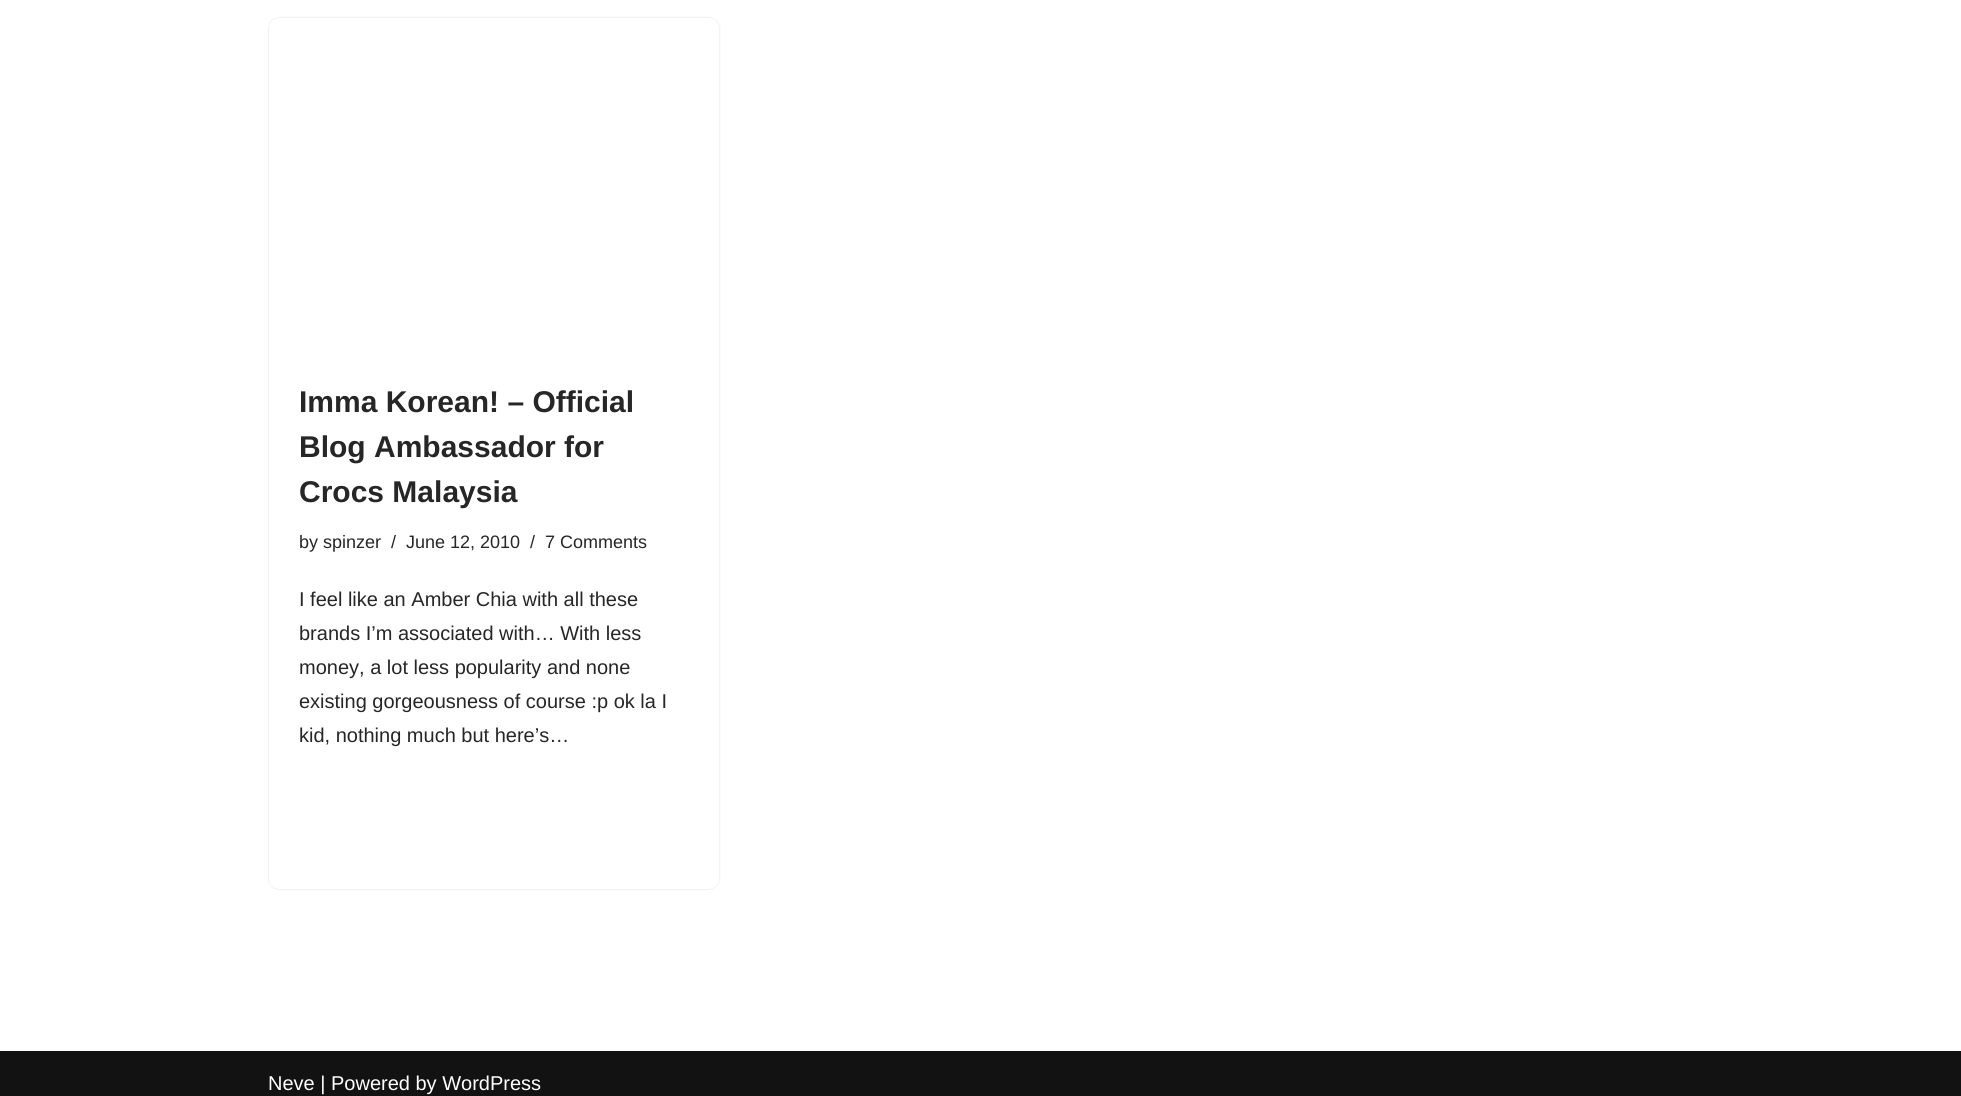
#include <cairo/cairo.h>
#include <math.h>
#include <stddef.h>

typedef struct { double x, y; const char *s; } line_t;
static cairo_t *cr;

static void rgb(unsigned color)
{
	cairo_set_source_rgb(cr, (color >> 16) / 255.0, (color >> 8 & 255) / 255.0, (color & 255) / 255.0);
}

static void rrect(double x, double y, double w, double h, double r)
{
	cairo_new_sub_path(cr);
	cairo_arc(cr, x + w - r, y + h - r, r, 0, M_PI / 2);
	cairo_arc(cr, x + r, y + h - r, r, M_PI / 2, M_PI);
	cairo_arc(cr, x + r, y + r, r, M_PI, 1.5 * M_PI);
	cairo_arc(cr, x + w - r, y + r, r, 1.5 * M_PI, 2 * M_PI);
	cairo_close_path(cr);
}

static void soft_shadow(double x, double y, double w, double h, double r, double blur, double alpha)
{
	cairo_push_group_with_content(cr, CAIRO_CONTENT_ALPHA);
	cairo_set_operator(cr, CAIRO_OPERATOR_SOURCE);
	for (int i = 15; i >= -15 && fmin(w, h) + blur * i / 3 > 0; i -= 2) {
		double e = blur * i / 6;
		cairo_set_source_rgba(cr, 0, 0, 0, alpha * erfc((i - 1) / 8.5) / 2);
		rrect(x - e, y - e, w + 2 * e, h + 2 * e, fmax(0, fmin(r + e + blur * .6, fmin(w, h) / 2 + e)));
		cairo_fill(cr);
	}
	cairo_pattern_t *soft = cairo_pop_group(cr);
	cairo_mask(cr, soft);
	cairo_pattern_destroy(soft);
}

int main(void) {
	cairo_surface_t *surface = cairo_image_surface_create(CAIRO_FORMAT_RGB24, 1961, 1096);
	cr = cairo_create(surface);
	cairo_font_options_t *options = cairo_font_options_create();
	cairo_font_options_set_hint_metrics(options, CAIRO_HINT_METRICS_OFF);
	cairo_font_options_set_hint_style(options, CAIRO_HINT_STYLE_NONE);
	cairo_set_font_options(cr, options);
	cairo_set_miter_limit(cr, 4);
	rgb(0xffffff);
	cairo_paint(cr);
	rgb(0x000000);
	soft_shadow(269, 18, 450, 871, 10, 1, 0.15);
	rgb(0xffffff);
	rrect(269, 18, 450, 871, 10);
	cairo_fill(cr);
	rgb(0x121212);
	cairo_rectangle(cr, 0, 1051, 1961, 45);
	cairo_fill(cr);
	cairo_select_font_face(cr, "Liberation Sans", CAIRO_FONT_SLANT_NORMAL, CAIRO_FONT_WEIGHT_BOLD);
	cairo_set_font_size(cr, 30);
	rgb(0x272626);
	{
		static const line_t items[] = {
			{299, 412, "Imma Korean! – Official"},
			{299, 457, "Blog Ambassador for"},
			{299, 502, "Crocs Malaysia"},
		};
		for (size_t i = 0; i < sizeof items / sizeof *items; i++) {
			cairo_move_to(cr, items[i].x, items[i].y);
			cairo_show_text(cr, items[i].s);
		}
	}
	cairo_select_font_face(cr, "Liberation Sans", CAIRO_FONT_SLANT_NORMAL, CAIRO_FONT_WEIGHT_NORMAL);
	cairo_set_font_size(cr, 18);
	{
		static const line_t items[] = {
			{299, 548, "by spinzer"},
			{391, 548, "/"},
			{406, 548, "June 12, 2010"},
			{530, 548, "/"},
			{545, 548, "7 Comments"},
		};
		for (size_t i = 0; i < sizeof items / sizeof *items; i++) {
			cairo_move_to(cr, items[i].x, items[i].y);
			cairo_show_text(cr, items[i].s);
		}
	}
	cairo_set_font_size(cr, 20);
	{
		static const line_t items[] = {
			{299, 606, "I feel like an Amber Chia with all these"},
			{299, 640, "brands I’m associated with… With less"},
			{299, 674, "money, a lot less popularity and none"},
			{299, 708, "existing gorgeousness of course :p ok la I"},
			{299, 742, "kid, nothing much but here’s…"},
		};
		for (size_t i = 0; i < sizeof items / sizeof *items; i++) {
			cairo_move_to(cr, items[i].x, items[i].y);
			cairo_show_text(cr, items[i].s);
		}
	}
	rgb(0xffffff);
	cairo_move_to(cr, 268, 1090);
	cairo_show_text(cr, "Neve | Powered by WordPress");
	cairo_surface_write_to_png(surface, "page.png");
	cairo_font_options_destroy(options);
	cairo_destroy(cr);
	cairo_surface_destroy(surface);
	return 0;
}
